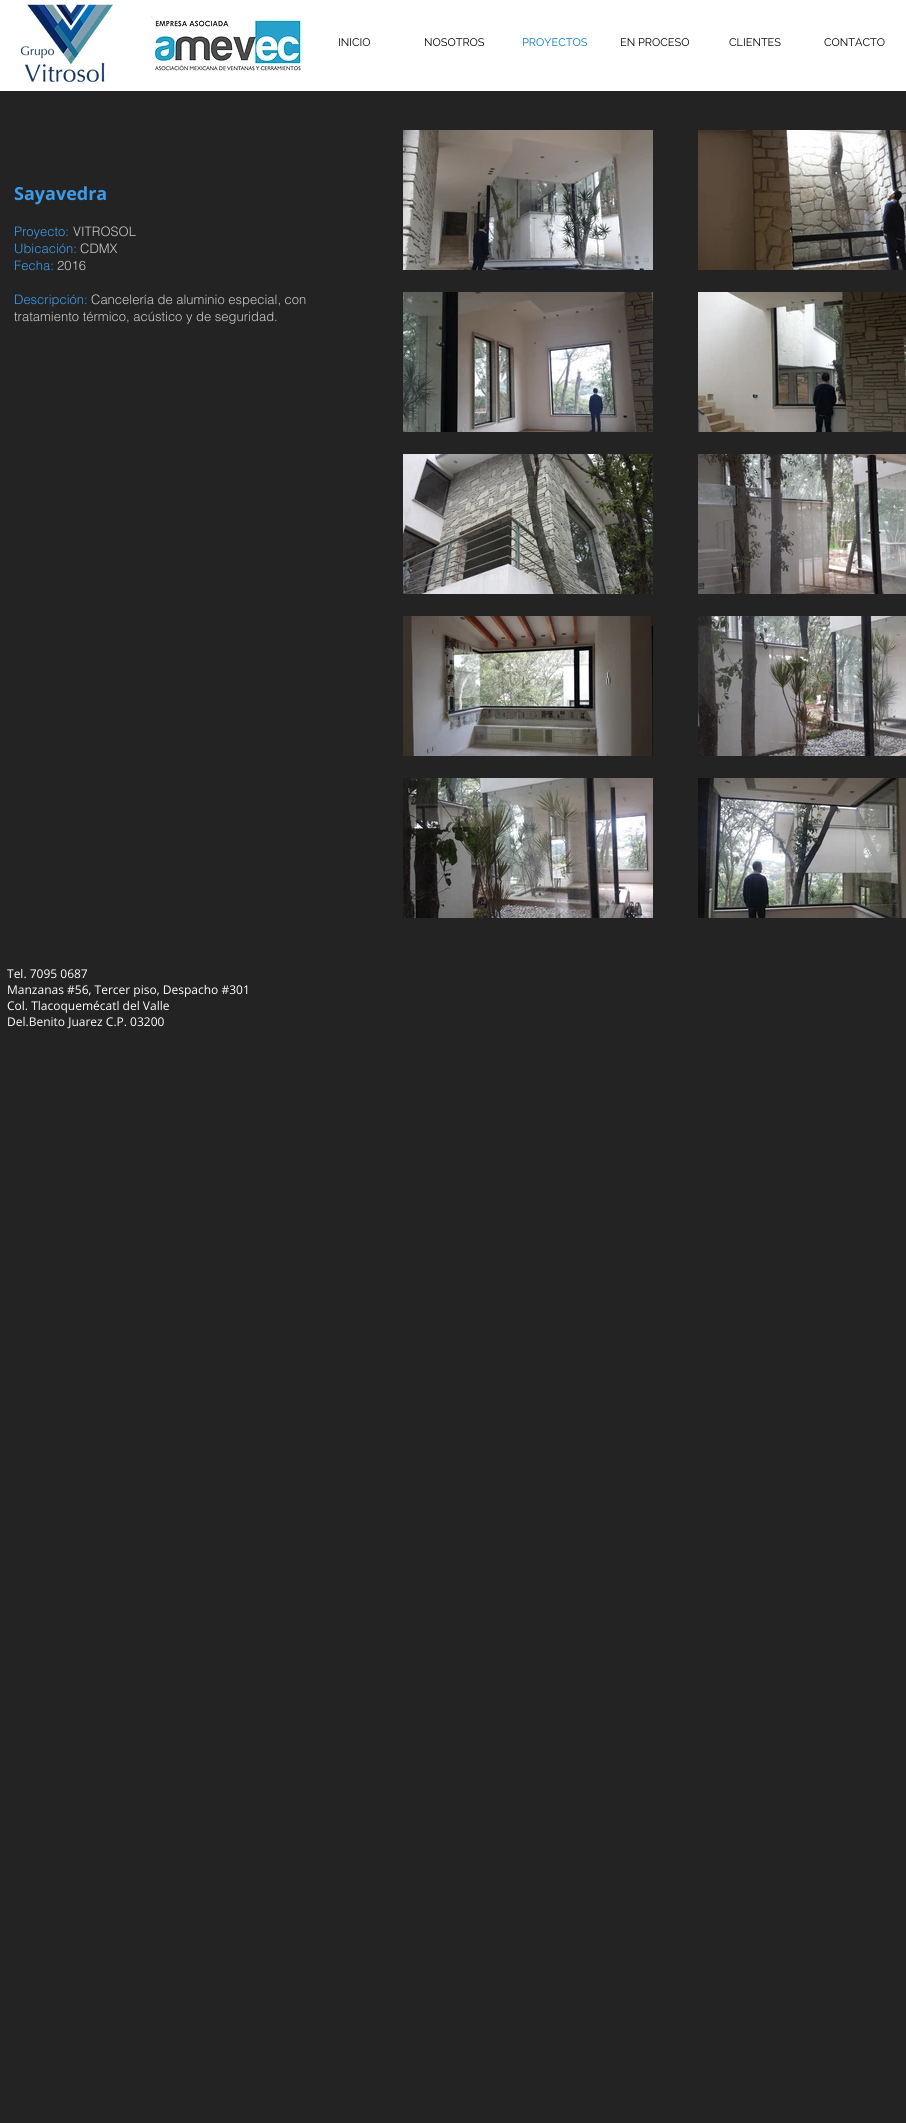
#include <cairo/cairo.h>
#include <math.h>
#include <stddef.h>

typedef struct { double x, y; const char *s; } line_t;
static cairo_t *cr;

static void rgb(unsigned color)
{
	cairo_set_source_rgb(cr, (color >> 16) / 255.0, (color >> 8 & 255) / 255.0, (color & 255) / 255.0);
}

static void image(const char *path, double x, double y, double w, double h)
{
	cairo_surface_t *image = cairo_image_surface_create_from_png(path);
	cairo_save(cr);
	cairo_set_source_surface(cr, image, x, y);
	cairo_rectangle(cr, x, y, w, h);
	cairo_fill(cr);
	cairo_restore(cr);
	cairo_surface_destroy(image);
}

int main(void) {
	cairo_surface_t *surface = cairo_image_surface_create(CAIRO_FORMAT_RGB24, 906, 2123);
	cr = cairo_create(surface);
	cairo_font_options_t *options = cairo_font_options_create();
	cairo_font_options_set_hint_metrics(options, CAIRO_HINT_METRICS_OFF);
	cairo_font_options_set_hint_style(options, CAIRO_HINT_STYLE_NONE);
	cairo_set_font_options(cr, options);
	cairo_set_miter_limit(cr, 4);
	rgb(0x232323);
	cairo_paint(cr);
	rgb(0xffffff);
	cairo_rectangle(cr, 0, 0, 906, 91);
	cairo_fill(cr);
	image("img/1.png", 20, 4, 93, 79);
	image("img/2.png", 151, 16, 152, 56);
	image("img/3.png", 403, 130, 250, 140);
	image("img/4.png", 698, 130, 208, 140);
	image("img/5.png", 403, 292, 250, 140);
	image("img/6.png", 698, 292, 208, 140);
	image("img/7.png", 403, 454, 250, 140);
	image("img/8.png", 698, 454, 208, 140);
	image("img/9.png", 403, 616, 250, 140);
	image("img/10.png", 698, 616, 208, 140);
	image("img/11.png", 403, 778, 250, 140);
	image("img/12.png", 698, 778, 208, 140);
	cairo_select_font_face(cr, "Raleway", CAIRO_FONT_SLANT_NORMAL, CAIRO_FONT_WEIGHT_NORMAL);
	cairo_set_font_size(cr, 11);
	rgb(0x000000);
	cairo_move_to(cr, 338, 46);
	cairo_show_text(cr, "INICIO");
	cairo_move_to(cr, 424, 46);
	cairo_show_text(cr, "NOSOTROS");
	rgb(0x0075c0);
	cairo_move_to(cr, 522, 46);
	cairo_show_text(cr, "PROYECTOS");
	rgb(0x000000);
	{
		static const line_t items[] = {
			{620, 46, "EN PROCESO"},
			{729, 46, "CLIENTES"},
			{824, 46, "CONTACTO"},
		};
		for (size_t i = 0; i < sizeof items / sizeof *items; i++) {
			cairo_move_to(cr, items[i].x, items[i].y);
			cairo_show_text(cr, items[i].s);
		}
	}
	cairo_select_font_face(cr, "Open Sans", CAIRO_FONT_SLANT_NORMAL, CAIRO_FONT_WEIGHT_BOLD);
	cairo_set_font_size(cr, 18);
	rgb(0x3d9be9);
	cairo_move_to(cr, 14, 200);
	cairo_show_text(cr, "Sayavedra");
	cairo_select_font_face(cr, "helvetica Light", CAIRO_FONT_SLANT_NORMAL, CAIRO_FONT_WEIGHT_NORMAL);
	cairo_set_font_size(cr, 13);
	cairo_move_to(cr, 14, 236);
	cairo_show_text(cr, "Proyecto:");
	rgb(0xcacaca);
	cairo_move_to(cr, 73, 236);
	cairo_show_text(cr, "VITROSOL");
	rgb(0x3d9be9);
	cairo_move_to(cr, 14, 253);
	cairo_show_text(cr, "Ubicación:");
	rgb(0xcacaca);
	cairo_move_to(cr, 80, 253);
	cairo_show_text(cr, "CDMX");
	rgb(0x3d9be9);
	cairo_move_to(cr, 14, 270);
	cairo_show_text(cr, "Fecha:");
	rgb(0xcacaca);
	cairo_move_to(cr, 57, 270);
	cairo_show_text(cr, "2016");
	rgb(0x3d9be9);
	cairo_move_to(cr, 14, 304);
	cairo_show_text(cr, "Descripción:");
	rgb(0xcacaca);
	cairo_move_to(cr, 91, 304);
	cairo_show_text(cr, "Cancelería de aluminio especial, con");
	cairo_move_to(cr, 14, 321);
	cairo_show_text(cr, "tratamiento térmico, acústico y de seguridad.");
	cairo_select_font_face(cr, "Open Sans", CAIRO_FONT_SLANT_NORMAL, CAIRO_FONT_WEIGHT_NORMAL);
	cairo_set_font_size(cr, 12);
	rgb(0xffffff);
	{
		static const line_t items[] = {
			{7, 978, "Tel. 7095 0687"},
			{7, 994, "Manzanas #56, Tercer piso, Despacho #301"},
			{7, 1010, "Col. Tlacoquemécatl del Valle"},
			{7, 1026, "Del.Benito Juarez C.P. 03200"},
		};
		for (size_t i = 0; i < sizeof items / sizeof *items; i++) {
			cairo_move_to(cr, items[i].x, items[i].y);
			cairo_show_text(cr, items[i].s);
		}
	}
	cairo_surface_write_to_png(surface, "page.png");
	cairo_font_options_destroy(options);
	cairo_destroy(cr);
	cairo_surface_destroy(surface);
	return 0;
}
